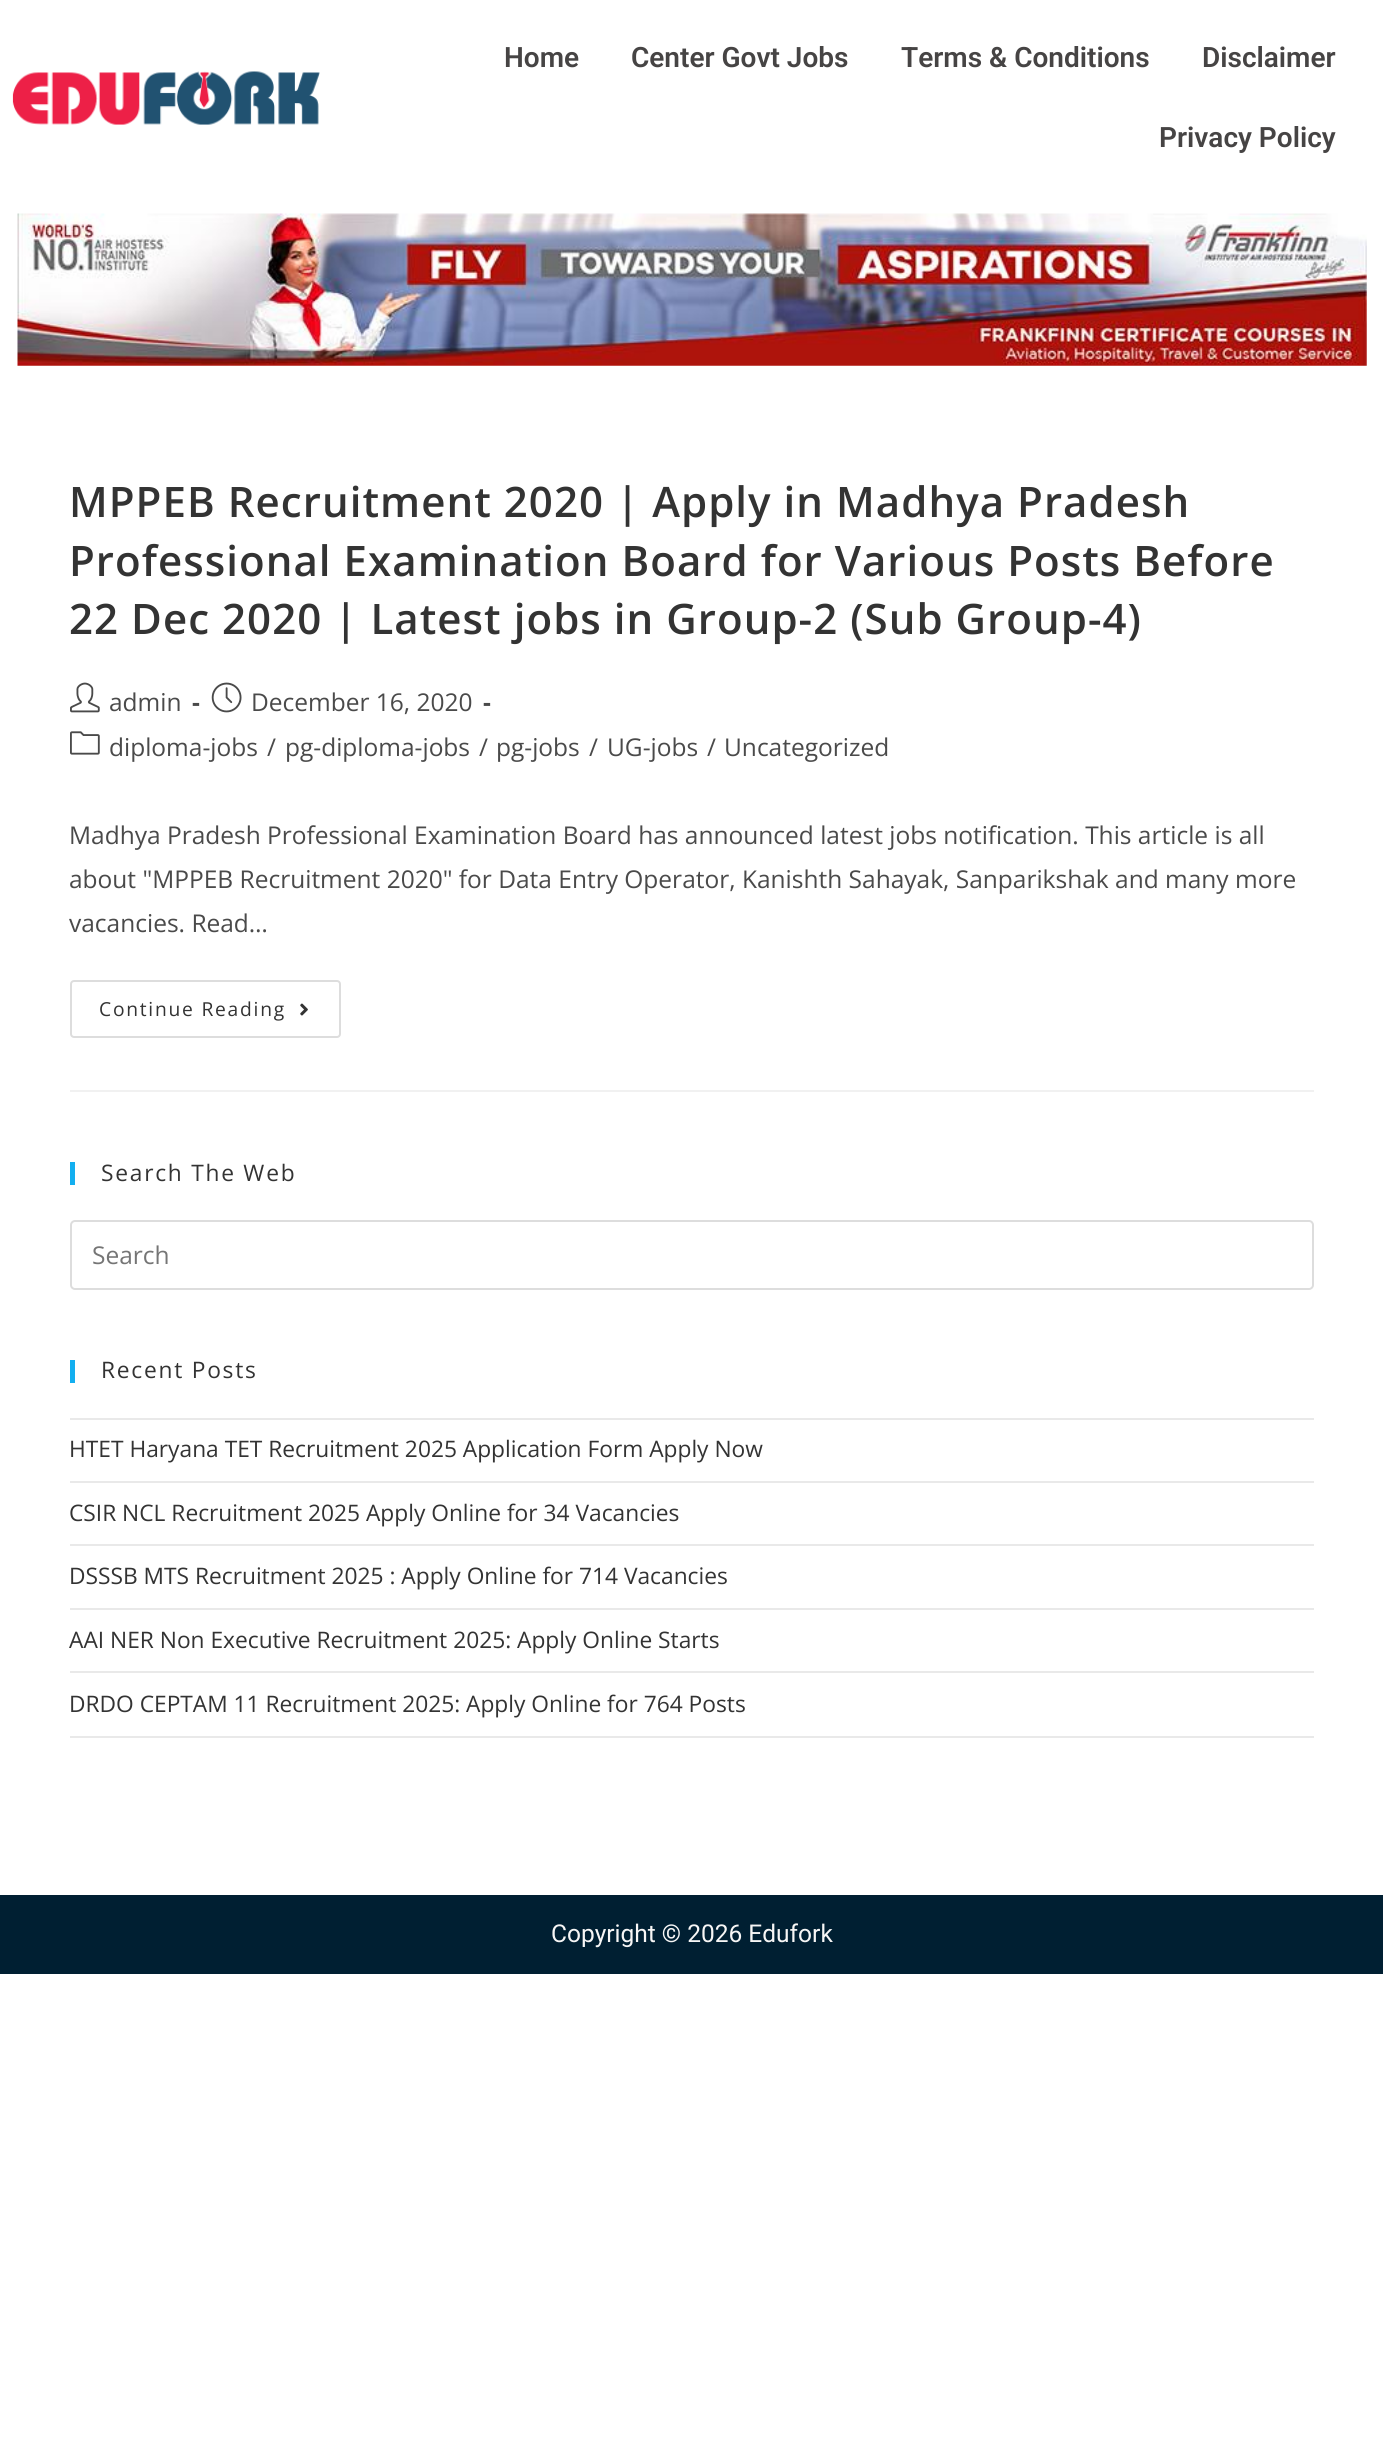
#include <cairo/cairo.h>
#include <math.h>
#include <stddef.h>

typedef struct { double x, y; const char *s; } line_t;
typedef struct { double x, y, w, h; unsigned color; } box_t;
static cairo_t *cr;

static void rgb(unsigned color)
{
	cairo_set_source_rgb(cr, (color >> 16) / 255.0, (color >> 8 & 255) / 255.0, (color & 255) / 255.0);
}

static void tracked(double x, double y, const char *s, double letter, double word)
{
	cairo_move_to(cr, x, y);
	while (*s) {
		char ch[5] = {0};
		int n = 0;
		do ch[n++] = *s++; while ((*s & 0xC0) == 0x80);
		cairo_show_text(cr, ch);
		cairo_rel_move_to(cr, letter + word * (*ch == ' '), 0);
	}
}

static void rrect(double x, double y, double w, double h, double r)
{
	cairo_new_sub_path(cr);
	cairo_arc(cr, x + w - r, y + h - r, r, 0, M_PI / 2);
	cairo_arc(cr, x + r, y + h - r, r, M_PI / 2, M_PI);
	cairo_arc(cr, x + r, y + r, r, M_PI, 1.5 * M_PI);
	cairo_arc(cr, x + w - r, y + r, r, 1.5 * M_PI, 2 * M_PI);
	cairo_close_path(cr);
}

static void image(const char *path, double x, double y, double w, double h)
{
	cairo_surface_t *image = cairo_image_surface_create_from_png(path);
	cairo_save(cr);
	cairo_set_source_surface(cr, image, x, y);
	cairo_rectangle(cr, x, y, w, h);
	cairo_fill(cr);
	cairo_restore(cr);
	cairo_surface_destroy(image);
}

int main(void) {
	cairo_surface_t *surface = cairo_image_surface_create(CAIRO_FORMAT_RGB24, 1383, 2444);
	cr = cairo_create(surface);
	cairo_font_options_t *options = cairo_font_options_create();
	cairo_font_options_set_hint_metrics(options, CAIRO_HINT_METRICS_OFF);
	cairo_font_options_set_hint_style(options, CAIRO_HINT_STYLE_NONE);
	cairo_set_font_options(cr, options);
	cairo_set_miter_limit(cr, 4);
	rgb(0xffffff);
	cairo_paint(cr);
	image("img/1.png", 12, 71, 308, 54);
	image("img/2.png", 17, 213, 1350, 153);
	rgb(0xf1f1f1);
	cairo_rectangle(cr, 70, 1090, 1244, 2);
	cairo_fill(cr);
	image("img/3.png", 70, 682, 30, 31);
	image("img/4.png", 211, 682, 31, 31);
	image("img/5.png", 70, 731, 30, 24);
	rrect(71, 981, 269, 56, 3);
	rgb(0xdddddd);
	cairo_stroke(cr);
	image("img/6.png", 300, 1003, 8, 13);
	rgb(0x13aff0);
	cairo_rectangle(cr, 70, 1162, 5, 23);
	cairo_fill(cr);
	rrect(71, 1221, 1242, 68, 4);
	rgb(0xdddddd);
	cairo_stroke(cr);
	{
		static const box_t items[] = {
			{70, 1360, 5, 23, 0x13aff0},
			{70, 1418, 1244, 2, 0xe9e9e9},
			{70, 1481, 1244, 2, 0xe9e9e9},
			{70, 1544, 1244, 2, 0xe9e9e9},
			{70, 1608, 1244, 2, 0xe9e9e9},
			{70, 1671, 1244, 2, 0xe9e9e9},
			{70, 1736, 1244, 2, 0xe9e9e9},
			{0, 1895, 1383, 79, 0x001f32},
		};
		for (size_t i = 0; i < sizeof items / sizeof *items; i++) {
			rgb(items[i].color);
			cairo_rectangle(cr, items[i].x, items[i].y, items[i].w, items[i].h);
			cairo_fill(cr);
		}
	}
	cairo_select_font_face(cr, "Roboto SemiBold", CAIRO_FONT_SLANT_NORMAL, CAIRO_FONT_WEIGHT_NORMAL);
	cairo_set_font_size(cr, 28);
	rgb(0x464444);
	{
		static const line_t items[] = {
			{504, 67, "Home"},
			{631, 67, "Center Govt Jobs"},
			{901, 67, "Terms & Conditions"},
			{1202, 67, "Disclaimer"},
			{1159, 147, "Privacy Policy"},
		};
		for (size_t i = 0; i < sizeof items / sizeof *items; i++) {
			cairo_move_to(cr, items[i].x, items[i].y);
			cairo_show_text(cr, items[i].s);
		}
	}
	cairo_select_font_face(cr, "Open Sans SemiBold", CAIRO_FONT_SLANT_NORMAL, CAIRO_FONT_WEIGHT_NORMAL);
	cairo_set_font_size(cr, 42);
	rgb(0x333333);
	{
		static const line_t items[] = {
			{69, 517, "MPPEB Recruitment 2020 | Apply in Madhya Pradesh"},
			{69, 576, "Professional Examination Board for Various Posts Before"},
			{69, 634, "22 Dec 2020 | Latest jobs in Group-2 (Sub Group-4)"},
		};
		for (size_t i = 0; i < sizeof items / sizeof *items; i++) {
			tracked(items[i].x, items[i].y, items[i].s, 1.05, 0);
		}
	}
	cairo_select_font_face(cr, "Open Sans", CAIRO_FONT_SLANT_NORMAL, CAIRO_FONT_WEIGHT_NORMAL);
	cairo_set_font_size(cr, 24.5);
	rgb(0x4a4a4a);
	cairo_move_to(cr, 109, 711);
	cairo_show_text(cr, "admin");
	cairo_select_font_face(cr, "Open Sans", CAIRO_FONT_SLANT_NORMAL, CAIRO_FONT_WEIGHT_BOLD);
	cairo_move_to(cr, 192, 711);
	cairo_show_text(cr, "-");
	cairo_select_font_face(cr, "Open Sans", CAIRO_FONT_SLANT_NORMAL, CAIRO_FONT_WEIGHT_NORMAL);
	cairo_move_to(cr, 251, 711);
	cairo_show_text(cr, "December 16, 2020");
	cairo_select_font_face(cr, "Open Sans", CAIRO_FONT_SLANT_NORMAL, CAIRO_FONT_WEIGHT_BOLD);
	cairo_move_to(cr, 483, 711);
	cairo_show_text(cr, "-");
	cairo_select_font_face(cr, "Open Sans", CAIRO_FONT_SLANT_NORMAL, CAIRO_FONT_WEIGHT_NORMAL);
	{
		static const line_t items[] = {
			{109, 756, "diploma-jobs"},
			{267, 756, "/"},
			{285, 756, "pg-diploma-jobs"},
			{479, 756, "/"},
			{496, 756, "pg-jobs"},
			{589, 756, "/"},
			{607, 756, "UG-jobs"},
			{707, 756, "/"},
			{724, 756, "Uncategorized"},
			{69, 844, "Madhya Pradesh Professional Examination Board has announced latest jobs notification. This article is all"},
			{69, 888, "about \"MPPEB Recruitment 2020\" for Data Entry Operator, Kanishth Sahayak, Sanparikshak and many more"},
			{69, 932, "vacancies. Read…"},
		};
		for (size_t i = 0; i < sizeof items / sizeof *items; i++) {
			cairo_move_to(cr, items[i].x, items[i].y);
			cairo_show_text(cr, items[i].s);
		}
	}
	cairo_set_font_size(cr, 19.25);
	rgb(0x333333);
	tracked(99, 1016, "Continue Reading", 1.75, 0);
	cairo_set_font_size(cr, 22.75);
	tracked(101, 1181, "Search The Web", 1.75, 0);
	cairo_set_font_size(cr, 24.5);
	rgb(0x757575);
	cairo_move_to(cr, 92, 1264);
	cairo_show_text(cr, "Search");
	cairo_set_font_size(cr, 22.75);
	rgb(0x333333);
	tracked(101, 1378, "Recent Posts", 1.75, 0);
	{
		static const line_t items[] = {
			{69, 1457, "HTET Haryana TET Recruitment 2025 Application Form Apply Now"},
			{69, 1521, "CSIR NCL Recruitment 2025 Apply Online for 34 Vacancies"},
			{69, 1584, "DSSSB MTS Recruitment 2025 : Apply Online for 714 Vacancies"},
			{69, 1648, "AAI NER Non Executive Recruitment 2025: Apply Online Starts"},
			{69, 1712, "DRDO CEPTAM 11 Recruitment 2025: Apply Online for 764 Posts"},
		};
		for (size_t i = 0; i < sizeof items / sizeof *items; i++) {
			cairo_move_to(cr, items[i].x, items[i].y);
			cairo_show_text(cr, items[i].s);
		}
	}
	cairo_select_font_face(cr, "Roboto", CAIRO_FONT_SLANT_NORMAL, CAIRO_FONT_WEIGHT_NORMAL);
	cairo_set_font_size(cr, 24.5);
	rgb(0xf7f6f6);
	cairo_move_to(cr, 551, 1942);
	cairo_show_text(cr, "Copyright © 2026 Edufork");
	cairo_surface_write_to_png(surface, "page.png");
	cairo_font_options_destroy(options);
	cairo_destroy(cr);
	cairo_surface_destroy(surface);
	return 0;
}
